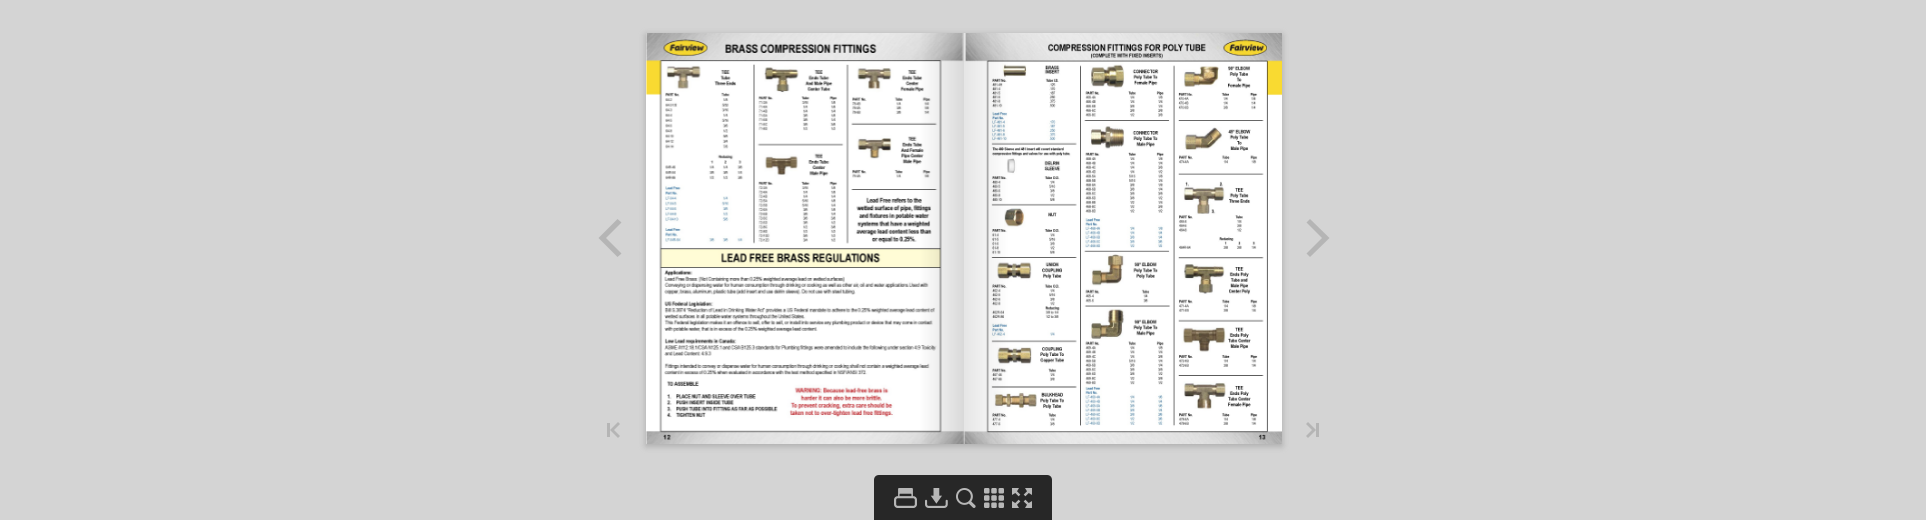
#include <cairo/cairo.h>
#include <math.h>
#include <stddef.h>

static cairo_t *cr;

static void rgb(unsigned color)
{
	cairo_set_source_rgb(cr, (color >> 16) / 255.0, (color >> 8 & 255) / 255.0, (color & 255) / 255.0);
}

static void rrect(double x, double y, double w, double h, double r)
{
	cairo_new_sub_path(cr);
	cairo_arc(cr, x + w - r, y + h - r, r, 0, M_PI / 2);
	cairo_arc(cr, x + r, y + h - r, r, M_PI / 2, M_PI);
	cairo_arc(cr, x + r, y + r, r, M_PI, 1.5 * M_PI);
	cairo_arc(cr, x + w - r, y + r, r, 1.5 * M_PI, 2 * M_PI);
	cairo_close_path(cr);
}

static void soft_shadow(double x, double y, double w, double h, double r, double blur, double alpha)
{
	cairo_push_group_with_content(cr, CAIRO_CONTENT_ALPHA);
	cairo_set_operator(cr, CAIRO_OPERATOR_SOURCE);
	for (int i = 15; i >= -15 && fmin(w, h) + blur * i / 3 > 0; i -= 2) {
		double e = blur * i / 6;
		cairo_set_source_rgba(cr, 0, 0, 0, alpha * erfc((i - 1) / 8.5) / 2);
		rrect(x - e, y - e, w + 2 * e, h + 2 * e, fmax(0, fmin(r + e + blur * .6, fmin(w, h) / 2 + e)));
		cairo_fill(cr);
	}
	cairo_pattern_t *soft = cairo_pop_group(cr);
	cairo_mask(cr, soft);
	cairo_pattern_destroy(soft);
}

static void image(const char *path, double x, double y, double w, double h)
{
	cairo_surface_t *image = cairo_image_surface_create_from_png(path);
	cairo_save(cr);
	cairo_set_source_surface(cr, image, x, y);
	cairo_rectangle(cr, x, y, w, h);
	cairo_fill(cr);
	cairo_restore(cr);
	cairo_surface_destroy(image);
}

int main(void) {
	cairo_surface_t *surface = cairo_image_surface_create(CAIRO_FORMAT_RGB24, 1926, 520);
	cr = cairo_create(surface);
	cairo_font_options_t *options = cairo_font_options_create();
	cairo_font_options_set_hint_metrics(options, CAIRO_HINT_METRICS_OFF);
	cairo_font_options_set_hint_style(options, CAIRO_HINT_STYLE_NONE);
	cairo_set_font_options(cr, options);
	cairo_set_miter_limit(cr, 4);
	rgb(0xd4d4d4);
	cairo_paint(cr);
	rgb(0xb5b5b5);
	cairo_new_path(cr);
	cairo_move_to(cr, 598.5, 238);
	cairo_line_to(cr, 617.5, 257);
	cairo_line_to(cr, 621.5, 253.5);
	cairo_line_to(cr, 606, 238);
	cairo_line_to(cr, 621.5, 222.5);
	cairo_line_to(cr, 617.5, 219);
	cairo_close_path(cr);
	cairo_fill(cr);
	rgb(0xaaaaaa);
	soft_shadow(646, 35, 636, 411, 0, 3.5, 1);
	rgb(0xffffff);
	cairo_rectangle(cr, 646, 33, 1, 411);
	cairo_fill(cr);
	image("img/1.png", 646, 33, 318, 411);
	image("img/2.png", 964, 33, 318, 411);
	rgb(0xb5b5b5);
	cairo_new_path(cr);
	cairo_move_to(cr, 1329.5, 238);
	cairo_line_to(cr, 1310, 257);
	cairo_line_to(cr, 1306.5, 253.5);
	cairo_line_to(cr, 1322, 238);
	cairo_line_to(cr, 1306.5, 222.5);
	cairo_line_to(cr, 1310, 219);
	cairo_close_path(cr);
	cairo_fill(cr);
	image("img/3.png", 607, 422, 13, 16);
	image("img/4.png", 1306, 422, 13, 16);
	rgb(0x272727);
	cairo_new_path(cr);
	cairo_move_to(cr, 879, 475);
	cairo_line_to(cr, 1047, 475);
	cairo_curve_to(cr, 1050, 475, 1052, 477, 1052, 480);
	cairo_line_to(cr, 1052, 520);
	cairo_line_to(cr, 874, 520);
	cairo_line_to(cr, 874, 480);
	cairo_curve_to(cr, 874, 477, 876, 475, 879, 475);
	cairo_close_path(cr);
	cairo_fill(cr);
	image("img/5.png", 894, 488, 23, 20);
	image("img/6.png", 925, 488, 23, 20);
	image("img/7.png", 956, 488, 20, 20);
	image("img/8.png", 984, 488, 20, 20);
	image("img/9.png", 1012, 488, 20, 20);
	cairo_surface_write_to_png(surface, "page.png");
	cairo_font_options_destroy(options);
	cairo_destroy(cr);
	cairo_surface_destroy(surface);
	return 0;
}
